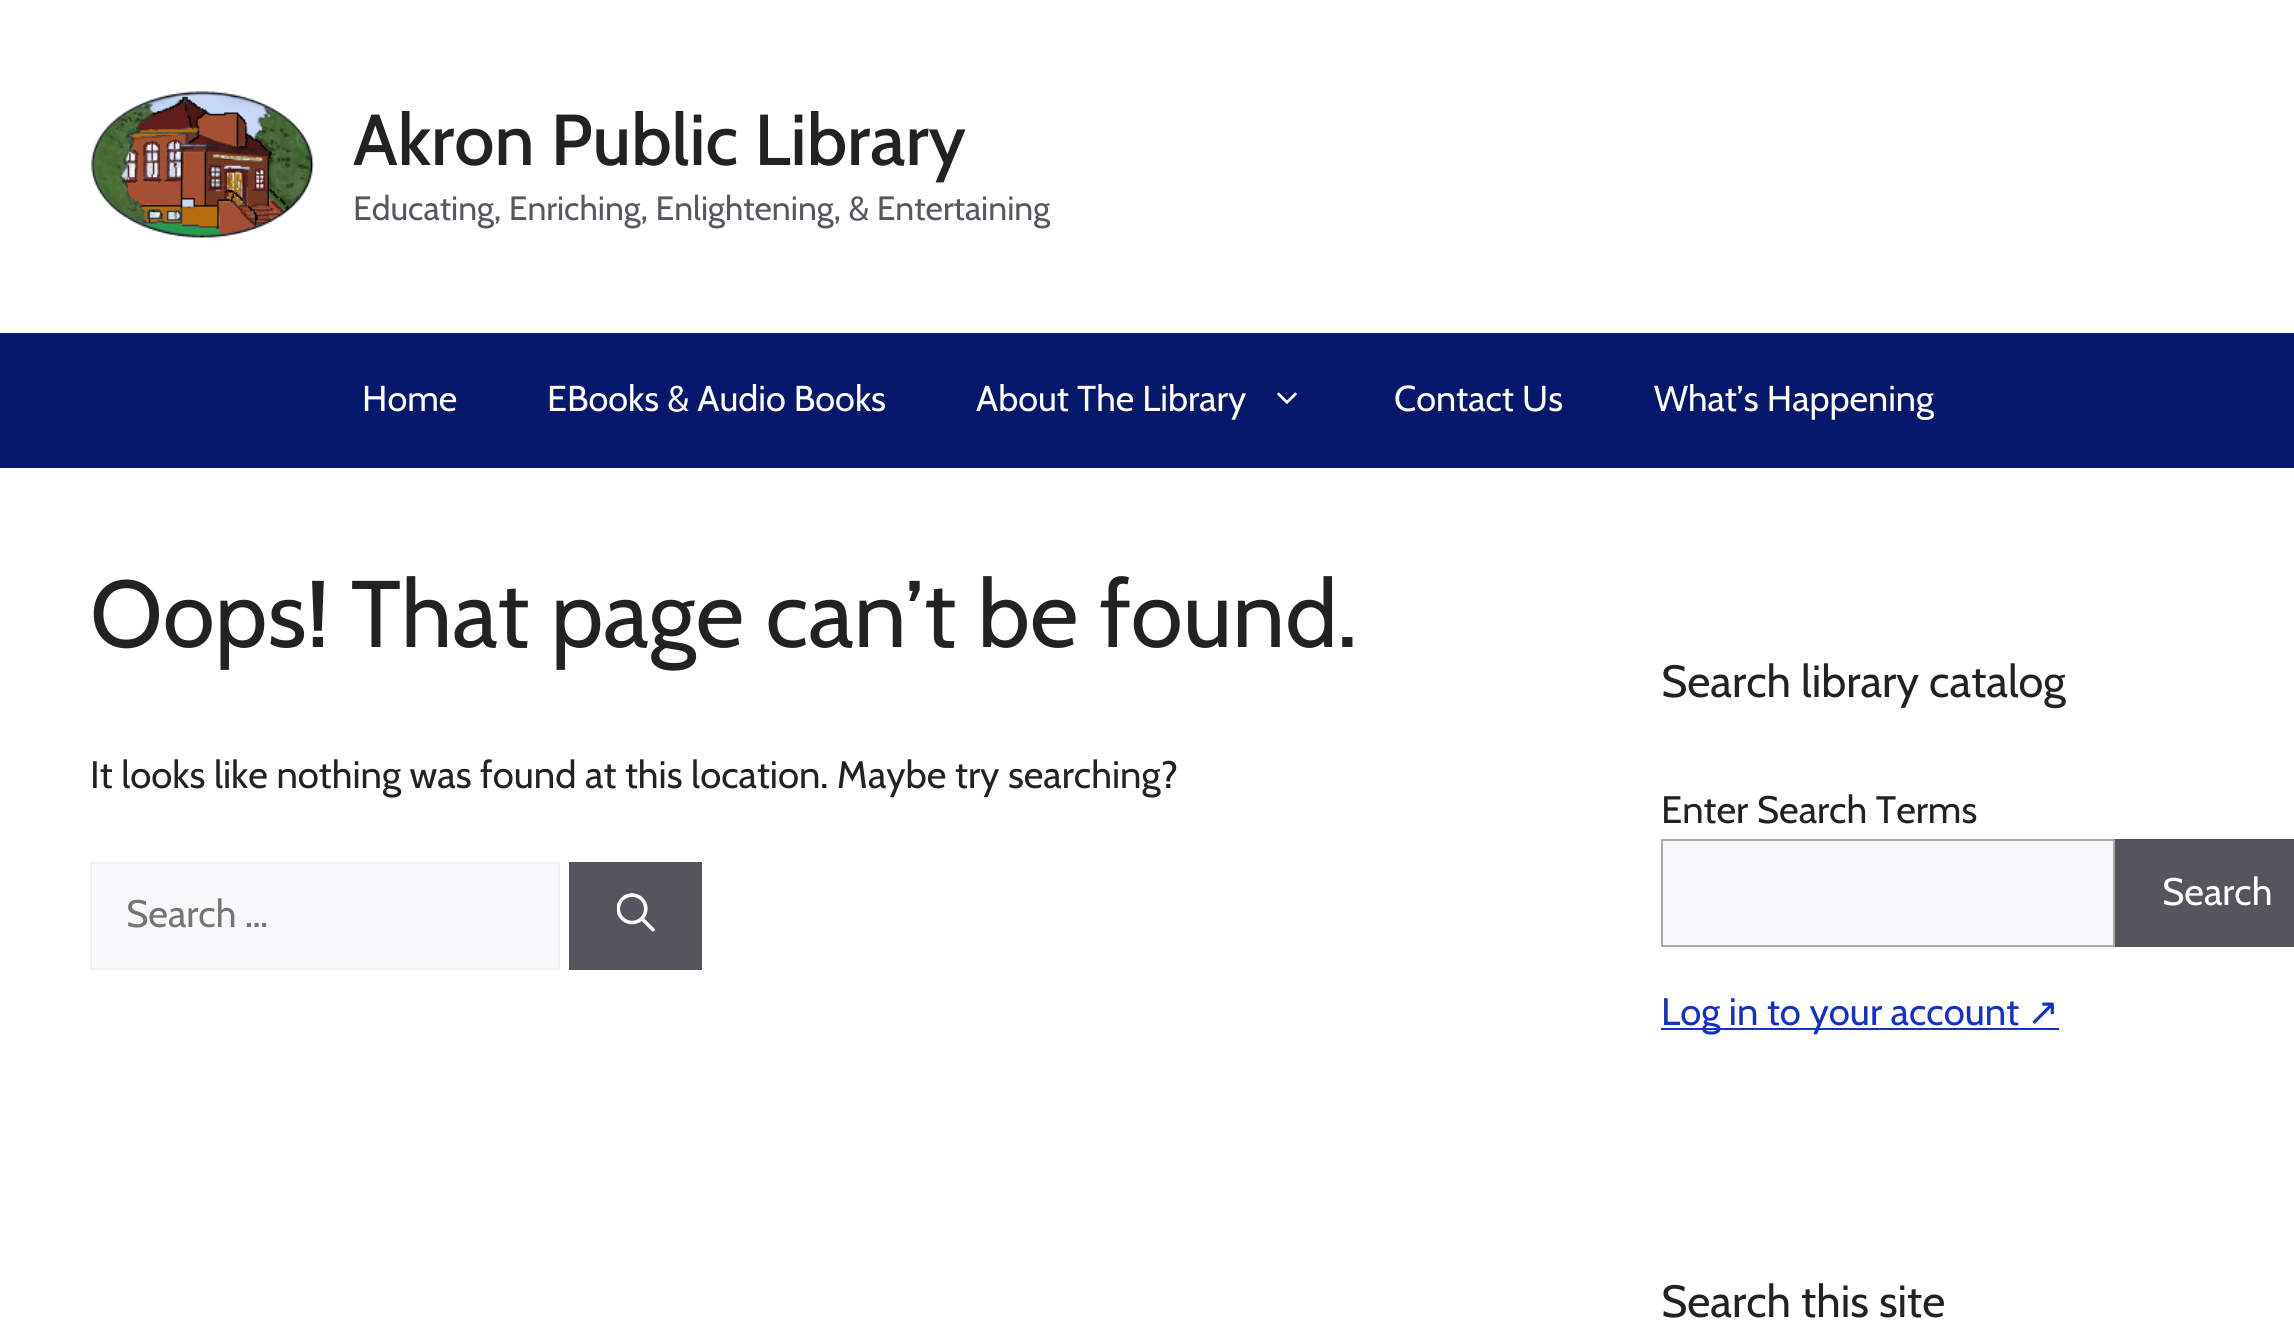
#include <cairo/cairo.h>
#include <math.h>
#include <stddef.h>

typedef struct { double x, y; const char *s; } line_t;
static cairo_t *cr;

static void rgb(unsigned color)
{
	cairo_set_source_rgb(cr, (color >> 16) / 255.0, (color >> 8 & 255) / 255.0, (color & 255) / 255.0);
}

static void image(const char *path, double x, double y, double w, double h)
{
	cairo_surface_t *image = cairo_image_surface_create_from_png(path);
	cairo_save(cr);
	cairo_set_source_surface(cr, image, x, y);
	cairo_rectangle(cr, x, y, w, h);
	cairo_fill(cr);
	cairo_restore(cr);
	cairo_surface_destroy(image);
}

int main(void) {
	cairo_surface_t *surface = cairo_image_surface_create(CAIRO_FORMAT_RGB24, 2294, 1337);
	cr = cairo_create(surface);
	cairo_font_options_t *options = cairo_font_options_create();
	cairo_font_options_set_hint_metrics(options, CAIRO_HINT_METRICS_OFF);
	cairo_font_options_set_hint_style(options, CAIRO_HINT_STYLE_NONE);
	cairo_set_font_options(cr, options);
	cairo_set_miter_limit(cr, 4);
	rgb(0xffffff);
	cairo_paint(cr);
	image("img/1.png", 91, 91, 223, 147);
	rgb(0x06186b);
	cairo_rectangle(cr, 0, 333, 2294, 135);
	cairo_fill(cr);
	image("img/2.png", 1277, 392, 20, 12);
	rgb(0xf7f8f9);
	cairo_rectangle(cr, 91, 863, 468, 106);
	cairo_fill_preserve(cr);
	rgb(0xf0f0f0);
	cairo_stroke(cr);
	rgb(0x55555e);
	cairo_rectangle(cr, 569, 862, 133, 108);
	cairo_fill(cr);
	image("img/3.png", 617, 893, 38, 39);
	rgb(0xf7f8f9);
	cairo_rectangle(cr, 1662, 840, 452, 106);
	cairo_fill_preserve(cr);
	rgb(0xa9a9a9);
	cairo_stroke(cr);
	rgb(0x55555e);
	cairo_rectangle(cr, 2115, 839, 179, 108);
	cairo_fill(cr);
	rgb(0x1131c9);
	cairo_rectangle(cr, 1661, 1028, 398, 2);
	cairo_fill(cr);
	cairo_select_font_face(cr, "Cabin Medium", CAIRO_FONT_SLANT_NORMAL, CAIRO_FONT_WEIGHT_NORMAL);
	cairo_set_font_size(cr, 72);
	rgb(0x222222);
	cairo_move_to(cr, 353, 165);
	cairo_show_text(cr, "Akron Public Library");
	cairo_select_font_face(cr, "Cabin", CAIRO_FONT_SLANT_NORMAL, CAIRO_FONT_WEIGHT_NORMAL);
	cairo_set_font_size(cr, 33.75);
	rgb(0x575760);
	cairo_move_to(cr, 353, 220);
	cairo_show_text(cr, "Educating, Enriching, Enlightening, & Entertaining");
	cairo_set_font_size(cr, 36);
	rgb(0xffffff);
	{
		static const line_t items[] = {
			{362, 411, "Home"},
			{547, 411, "EBooks & Audio Books"},
			{976, 411, "About The Library"},
			{1394, 411, "Contact Us"},
			{1654, 411, "What’s Happening"},
		};
		for (size_t i = 0; i < sizeof items / sizeof *items; i++) {
			cairo_move_to(cr, items[i].x, items[i].y);
			cairo_show_text(cr, items[i].s);
		}
	}
	cairo_set_font_size(cr, 94.5);
	rgb(0x222222);
	cairo_move_to(cr, 90, 647);
	cairo_show_text(cr, "Oops! That page can’t be found.");
	cairo_set_font_size(cr, 38.25);
	cairo_move_to(cr, 90, 788);
	cairo_show_text(cr, "It looks like nothing was found at this location. Maybe try searching?");
	rgb(0x757575);
	cairo_move_to(cr, 126, 927);
	cairo_show_text(cr, "Search …");
	cairo_set_font_size(cr, 45);
	rgb(0x222222);
	cairo_move_to(cr, 1661, 697);
	cairo_show_text(cr, "Search library catalog");
	cairo_set_font_size(cr, 38.25);
	cairo_move_to(cr, 1661, 823);
	cairo_show_text(cr, "Enter Search Terms");
	rgb(0xffffff);
	cairo_move_to(cr, 2162, 905);
	cairo_show_text(cr, "Search");
	rgb(0x1131c9);
	cairo_move_to(cr, 1661, 1025);
	cairo_show_text(cr, "Log in to your account");
	cairo_select_font_face(cr, "DejaVu Sans", CAIRO_FONT_SLANT_NORMAL, CAIRO_FONT_WEIGHT_NORMAL);
	cairo_move_to(cr, 2027, 1025);
	cairo_show_text(cr, "↗");
	cairo_select_font_face(cr, "Cabin", CAIRO_FONT_SLANT_NORMAL, CAIRO_FONT_WEIGHT_NORMAL);
	cairo_set_font_size(cr, 45);
	rgb(0x222222);
	cairo_move_to(cr, 1661, 1317);
	cairo_show_text(cr, "Search this site");
	cairo_surface_write_to_png(surface, "page.png");
	cairo_font_options_destroy(options);
	cairo_destroy(cr);
	cairo_surface_destroy(surface);
	return 0;
}
